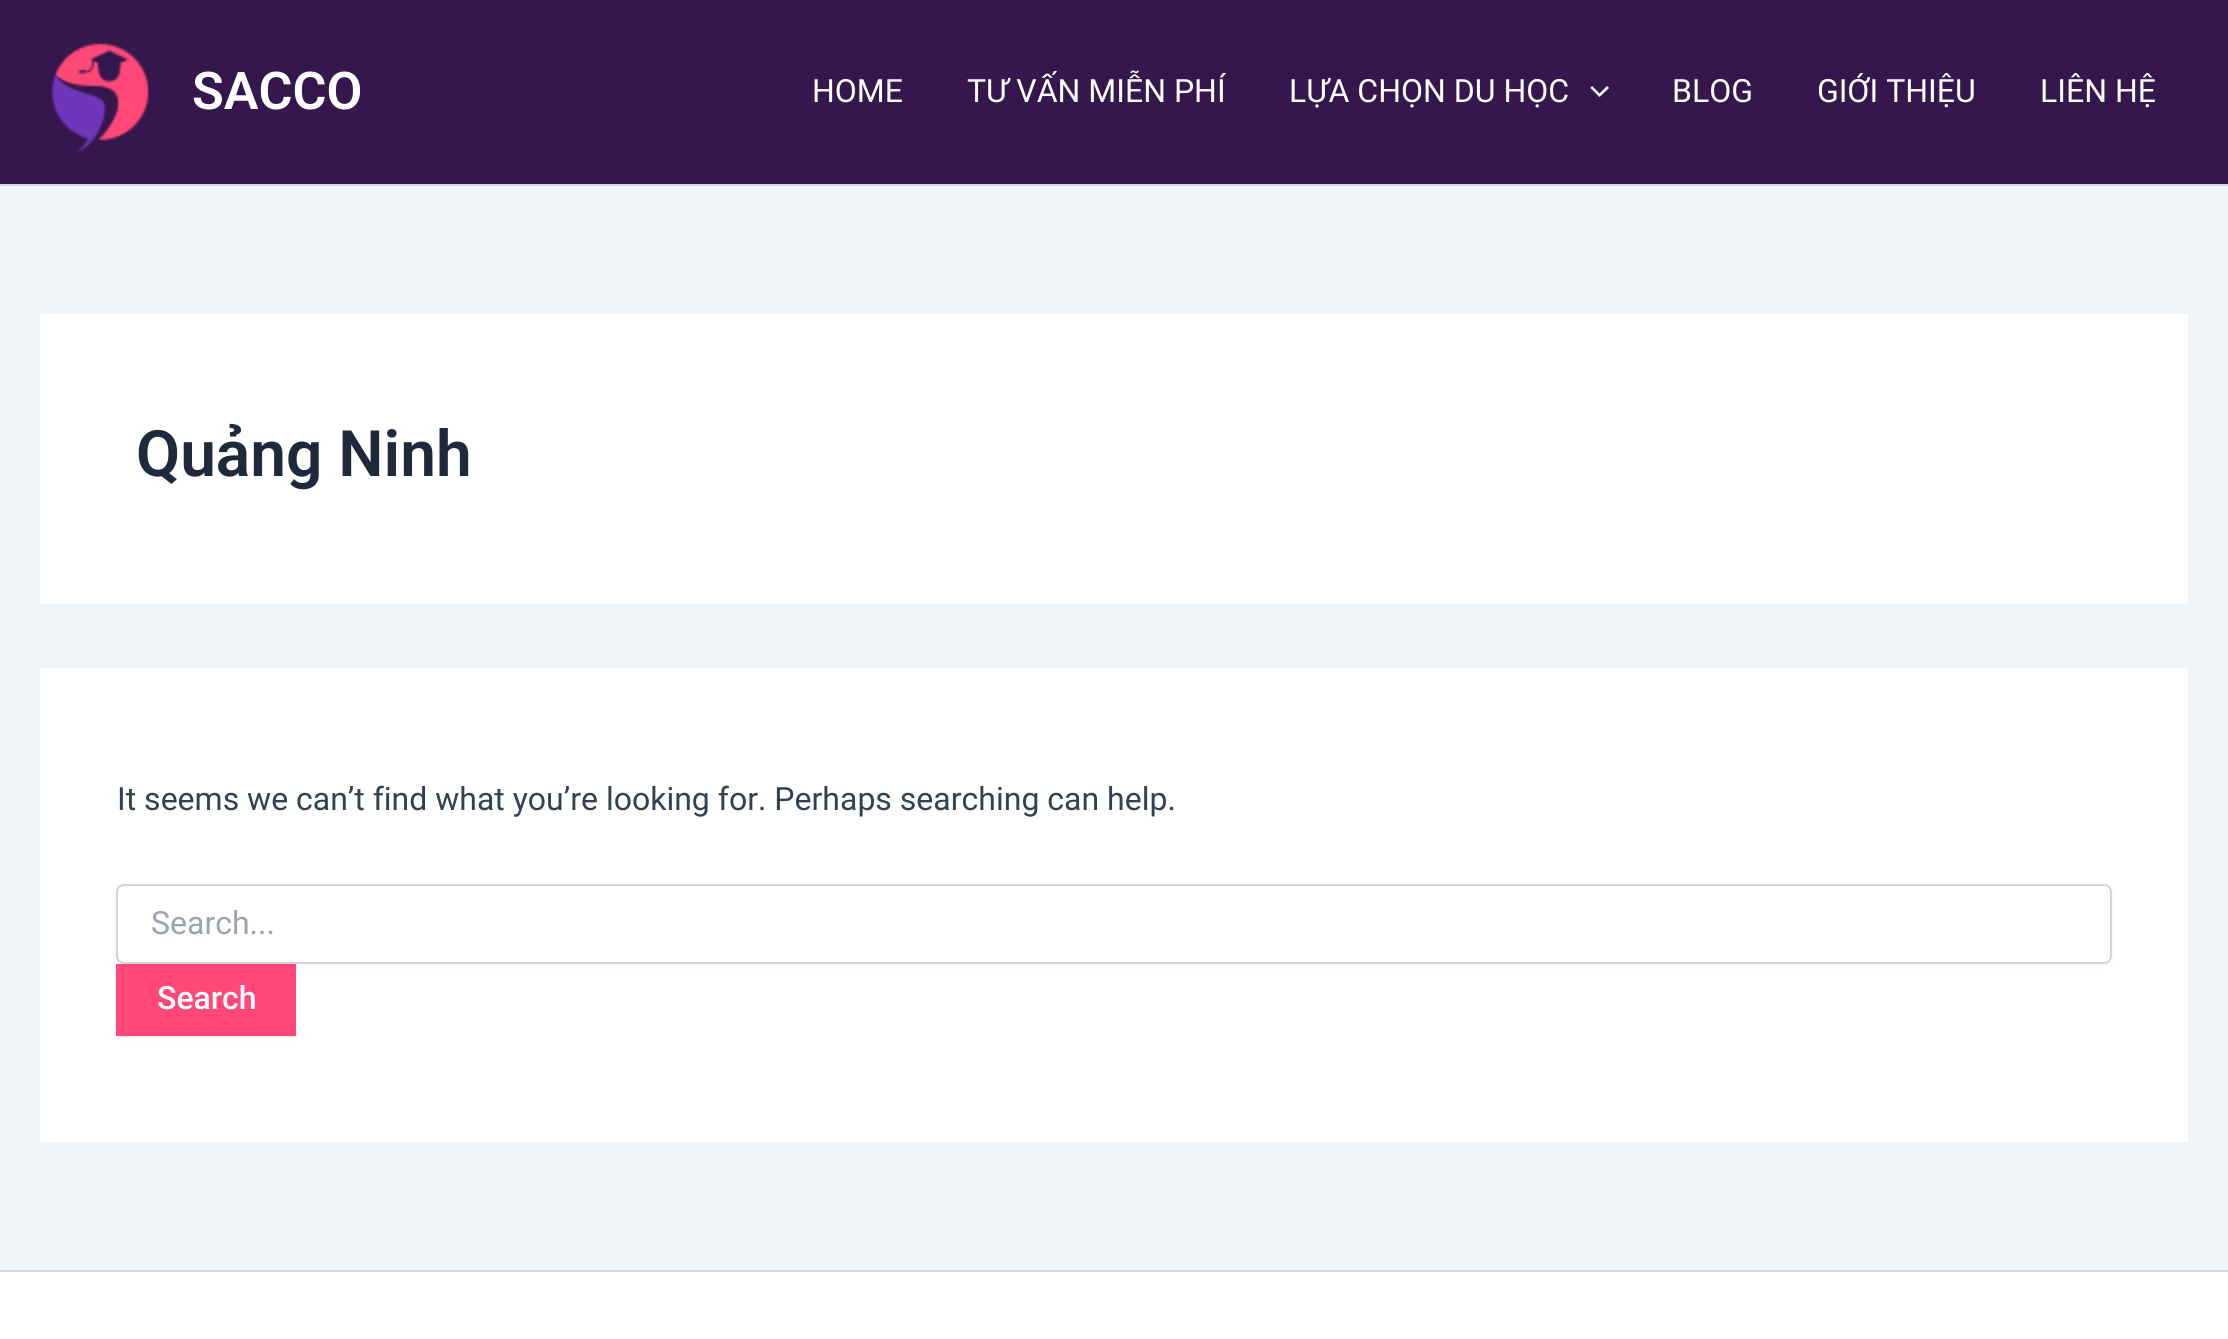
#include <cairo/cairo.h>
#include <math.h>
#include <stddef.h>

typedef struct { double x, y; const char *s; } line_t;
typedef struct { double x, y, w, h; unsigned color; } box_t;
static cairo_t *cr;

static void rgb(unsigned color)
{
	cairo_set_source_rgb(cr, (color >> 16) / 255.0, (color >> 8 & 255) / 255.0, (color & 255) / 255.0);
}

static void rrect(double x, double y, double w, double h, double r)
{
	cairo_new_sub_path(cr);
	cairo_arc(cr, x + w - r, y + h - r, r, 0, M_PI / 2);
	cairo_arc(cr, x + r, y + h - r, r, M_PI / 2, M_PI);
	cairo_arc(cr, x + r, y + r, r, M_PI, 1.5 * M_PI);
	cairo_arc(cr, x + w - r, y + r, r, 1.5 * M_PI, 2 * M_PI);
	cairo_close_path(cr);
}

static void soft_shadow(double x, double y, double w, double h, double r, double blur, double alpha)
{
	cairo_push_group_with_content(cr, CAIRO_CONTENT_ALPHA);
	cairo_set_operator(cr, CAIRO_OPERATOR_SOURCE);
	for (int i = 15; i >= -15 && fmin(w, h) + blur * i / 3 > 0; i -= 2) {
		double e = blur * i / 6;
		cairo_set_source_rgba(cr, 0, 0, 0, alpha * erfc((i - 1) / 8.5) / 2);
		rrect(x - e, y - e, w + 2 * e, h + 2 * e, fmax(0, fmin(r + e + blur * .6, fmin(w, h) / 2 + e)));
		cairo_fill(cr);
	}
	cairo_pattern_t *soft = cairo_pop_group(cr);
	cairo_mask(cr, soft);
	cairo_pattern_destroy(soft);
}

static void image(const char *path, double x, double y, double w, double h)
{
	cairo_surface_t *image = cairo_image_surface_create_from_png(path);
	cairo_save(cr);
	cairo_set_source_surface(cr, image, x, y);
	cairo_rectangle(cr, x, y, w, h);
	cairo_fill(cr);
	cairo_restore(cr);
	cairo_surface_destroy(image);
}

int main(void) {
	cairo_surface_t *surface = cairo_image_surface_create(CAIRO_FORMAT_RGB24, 2228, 1339);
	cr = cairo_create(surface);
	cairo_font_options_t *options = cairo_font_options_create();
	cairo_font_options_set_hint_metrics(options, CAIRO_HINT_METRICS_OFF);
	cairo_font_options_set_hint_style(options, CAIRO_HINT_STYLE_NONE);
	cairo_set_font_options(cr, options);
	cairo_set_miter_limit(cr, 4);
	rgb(0xf0f5fa);
	cairo_paint(cr);
	rgb(0x36174d);
	cairo_rectangle(cr, 0, 0, 2228, 184);
	cairo_fill(cr);
	rgb(0xd1d5db);
	cairo_rectangle(cr, 0, 184, 2228, 2);
	cairo_fill(cr);
	image("img/1.png", 51, 43, 99, 109);
	rgb(0xffffff);
	cairo_new_path(cr);
	cairo_move_to(cr, 1590.5, 88);
	cairo_line_to(cr, 1599.5, 97);
	cairo_line_to(cr, 1609, 88);
	cairo_line_to(cr, 1607, 86);
	cairo_line_to(cr, 1599.5, 93.5);
	cairo_line_to(cr, 1592, 86);
	cairo_close_path(cr);
	cairo_fill(cr);
	cairo_rectangle(cr, 40, 314, 2148, 290);
	cairo_fill(cr);
	cairo_rectangle(cr, 40, 668, 2148, 474);
	cairo_fill(cr);
	rgb(0x000000);
	soft_shadow(116, 886, 1996, 80, 8, 2, 0.05);
	rgb(0xffffff);
	rrect(117, 885, 1994, 78, 7);
	cairo_fill_preserve(cr);
	rgb(0xd1d5db);
	cairo_stroke(cr);
	rgb(0x000000);
	soft_shadow(116, 966, 180, 72, 0, 2, 0.05);
	{
		static const box_t items[] = {
			{116, 964, 180, 72, 0xff4778},
			{0, 1272, 2228, 67, 0xffffff},
			{0, 1270, 2228, 2, 0xd1d5db},
		};
		for (size_t i = 0; i < sizeof items / sizeof *items; i++) {
			rgb(items[i].color);
			cairo_rectangle(cr, items[i].x, items[i].y, items[i].w, items[i].h);
			cairo_fill(cr);
		}
	}
	cairo_select_font_face(cr, "Roboto SemiBold", CAIRO_FONT_SLANT_NORMAL, CAIRO_FONT_WEIGHT_NORMAL);
	cairo_set_font_size(cr, 52);
	rgb(0xffffff);
	cairo_move_to(cr, 192, 109);
	cairo_show_text(cr, "SACCO");
	cairo_select_font_face(cr, "Roboto", CAIRO_FONT_SLANT_NORMAL, CAIRO_FONT_WEIGHT_NORMAL);
	cairo_set_font_size(cr, 32);
	{
		static const line_t items[] = {
			{812, 102, "HOME"},
			{967, 102, "TƯ VẤN MIỄN PHÍ"},
			{1289, 102, "LỰA CHỌN DU HỌC"},
			{1672, 102, "BLOG"},
			{1817, 102, "GIỚI THIỆU"},
			{2040, 102, "LIÊN HỆ"},
		};
		for (size_t i = 0; i < sizeof items / sizeof *items; i++) {
			cairo_move_to(cr, items[i].x, items[i].y);
			cairo_show_text(cr, items[i].s);
		}
	}
	cairo_select_font_face(cr, "Roboto SemiBold", CAIRO_FONT_SLANT_NORMAL, CAIRO_FONT_WEIGHT_NORMAL);
	cairo_set_font_size(cr, 64);
	rgb(0x1e293b);
	cairo_move_to(cr, 136, 476);
	cairo_show_text(cr, "Quảng Ninh");
	cairo_select_font_face(cr, "Roboto", CAIRO_FONT_SLANT_NORMAL, CAIRO_FONT_WEIGHT_NORMAL);
	cairo_set_font_size(cr, 32);
	rgb(0x334155);
	cairo_move_to(cr, 117, 810);
	cairo_show_text(cr, "It seems we can’t find what you’re looking for. Perhaps searching can help.");
	rgb(0x9ca3af);
	cairo_move_to(cr, 151, 934);
	cairo_show_text(cr, "Search...");
	cairo_select_font_face(cr, "Roboto Medium", CAIRO_FONT_SLANT_NORMAL, CAIRO_FONT_WEIGHT_NORMAL);
	rgb(0xffffff);
	cairo_move_to(cr, 157, 1009);
	cairo_show_text(cr, "Search");
	cairo_surface_write_to_png(surface, "page.png");
	cairo_font_options_destroy(options);
	cairo_destroy(cr);
	cairo_surface_destroy(surface);
	return 0;
}
